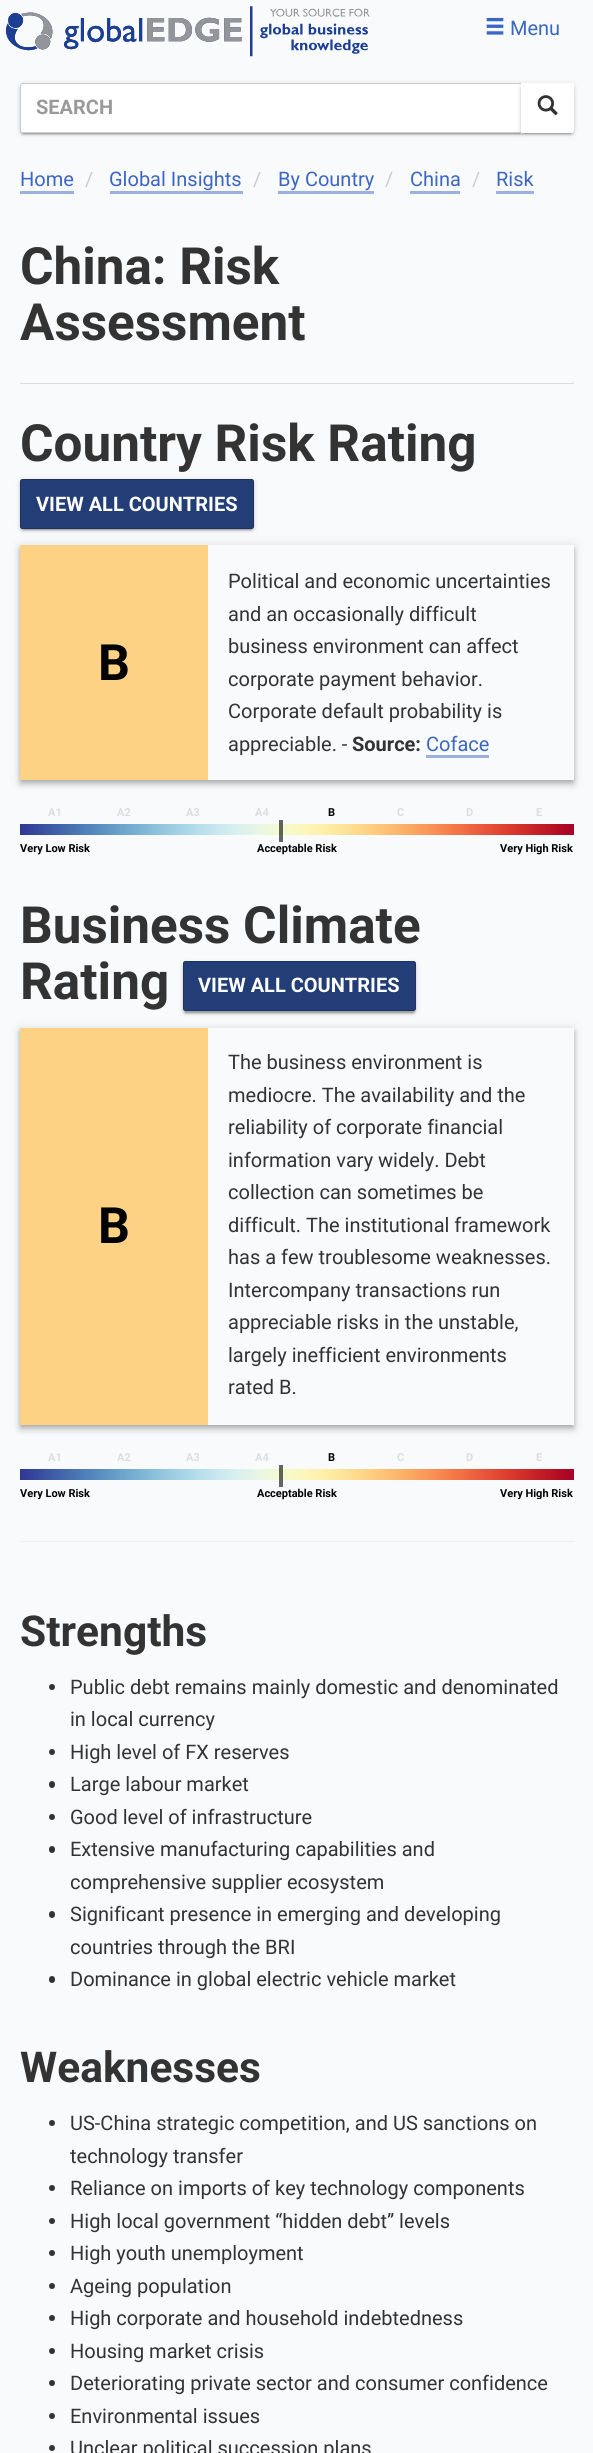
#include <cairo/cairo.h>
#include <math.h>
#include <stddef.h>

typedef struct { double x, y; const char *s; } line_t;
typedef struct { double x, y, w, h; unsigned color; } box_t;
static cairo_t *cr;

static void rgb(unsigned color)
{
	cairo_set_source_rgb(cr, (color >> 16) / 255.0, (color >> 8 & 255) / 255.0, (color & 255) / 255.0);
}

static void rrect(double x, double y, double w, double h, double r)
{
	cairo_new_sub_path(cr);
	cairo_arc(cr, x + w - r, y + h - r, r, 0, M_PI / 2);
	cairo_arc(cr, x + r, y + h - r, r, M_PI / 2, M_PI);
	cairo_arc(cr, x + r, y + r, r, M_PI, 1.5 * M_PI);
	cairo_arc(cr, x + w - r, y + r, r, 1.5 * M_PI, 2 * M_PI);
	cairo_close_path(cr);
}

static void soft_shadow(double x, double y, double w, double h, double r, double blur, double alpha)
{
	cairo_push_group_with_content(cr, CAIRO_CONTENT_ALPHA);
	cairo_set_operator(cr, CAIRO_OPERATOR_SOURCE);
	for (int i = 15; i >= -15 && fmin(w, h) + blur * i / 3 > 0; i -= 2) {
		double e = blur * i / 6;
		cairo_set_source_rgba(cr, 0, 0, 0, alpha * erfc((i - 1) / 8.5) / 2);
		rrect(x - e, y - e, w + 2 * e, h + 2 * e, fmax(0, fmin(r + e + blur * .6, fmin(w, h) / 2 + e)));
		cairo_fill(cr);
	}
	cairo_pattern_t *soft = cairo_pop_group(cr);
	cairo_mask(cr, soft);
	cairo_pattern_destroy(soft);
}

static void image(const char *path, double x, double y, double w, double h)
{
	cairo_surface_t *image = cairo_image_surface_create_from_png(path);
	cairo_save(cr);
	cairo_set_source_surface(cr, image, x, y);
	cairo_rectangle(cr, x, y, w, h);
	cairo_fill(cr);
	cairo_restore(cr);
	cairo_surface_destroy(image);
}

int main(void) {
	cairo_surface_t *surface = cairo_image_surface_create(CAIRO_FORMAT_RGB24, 593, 2453);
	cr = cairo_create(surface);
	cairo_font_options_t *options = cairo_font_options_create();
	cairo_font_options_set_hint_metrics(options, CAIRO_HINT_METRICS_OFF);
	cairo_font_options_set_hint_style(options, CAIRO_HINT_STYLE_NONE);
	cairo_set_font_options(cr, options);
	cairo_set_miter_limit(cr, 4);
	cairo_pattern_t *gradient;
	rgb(0xf9fafb);
	cairo_paint(cr);
	rgb(0x646464);
	cairo_rectangle(cr, 279, 1465, 4, 22);
	cairo_fill(cr);
	cairo_rectangle(cr, 279, 820, 4, 22);
	cairo_fill(cr);
	image("img/1.png", 6, 6, 364, 51);
	image("img/2.png", 486, 17, 18, 18);
	rgb(0x000000);
	soft_shadow(20, 84, 503, 50, 2.5, 3, 0.12);
	soft_shadow(23, 89, 497, 45, 0, 0.5, 0.2);
	soft_shadow(20, 85, 503, 50, 2.5, 1, 0.14);
	rgb(0xffffff);
	cairo_new_path(cr);
	cairo_move_to(cr, 22.5, 83.5);
	cairo_line_to(cr, 522.5, 83.5);
	cairo_line_to(cr, 522.5, 132.5);
	cairo_line_to(cr, 22.5, 132.5);
	cairo_curve_to(cr, 21.5, 132.5, 20.5, 131.5, 20.5, 130.5);
	cairo_line_to(cr, 20.5, 85.5);
	cairo_curve_to(cr, 20.5, 84.5, 21.5, 83.5, 22.5, 83.5);
	cairo_close_path(cr);
	cairo_fill_preserve(cr);
	rgb(0xcccccc);
	cairo_set_line_width(cr, 1);
	cairo_stroke(cr);
	rgb(0x000000);
	soft_shadow(521, 84, 53, 50, 2.5, 3, 0.12);
	soft_shadow(524, 89, 47, 45, 0, 0.5, 0.2);
	soft_shadow(521, 85, 53, 50, 2.5, 1, 0.14);
	rgb(0xffffff);
	cairo_new_path(cr);
	cairo_move_to(cr, 521, 83);
	cairo_line_to(cr, 571.5, 83);
	cairo_curve_to(cr, 573, 83, 574, 84, 574, 85.5);
	cairo_line_to(cr, 574, 130.5);
	cairo_curve_to(cr, 574, 132, 573, 133, 571.5, 133);
	cairo_line_to(cr, 521, 133);
	cairo_close_path(cr);
	cairo_fill(cr);
	image("img/3.png", 537, 95, 21, 21);
	{
		static const box_t items[] = {
			{20, 191, 54, 3, 0x9ab0e0},
			{110, 191, 133, 3, 0x9ab0e0},
			{278, 191, 96, 3, 0x9ab0e0},
			{410, 191, 50, 3, 0x9ab0e0},
			{496, 191, 38, 3, 0x9ab0e0},
			{20, 383, 554, 1, 0xdddddd},
		};
		for (size_t i = 0; i < sizeof items / sizeof *items; i++) {
			rgb(items[i].color);
			cairo_rectangle(cr, items[i].x, items[i].y, items[i].w, items[i].h);
			cairo_fill(cr);
		}
	}
	rgb(0x000000);
	soft_shadow(20, 480, 234, 50, 2.5, 3, 0.12);
	soft_shadow(23, 485, 228, 45, 0, 0.5, 0.2);
	soft_shadow(20, 481, 234, 50, 2.5, 1, 0.14);
	soft_shadow(20, 546, 554, 235, 0, 6, 0.12);
	rgb(0x233d76);
	rrect(20.5, 479.5, 233, 49, 2);
	cairo_fill_preserve(cr);
	rgb(0x1e3362);
	cairo_stroke(cr);
	rgb(0x000000);
	soft_shadow(21, 549, 552, 232, 0, 2.5, 0.2);
	soft_shadow(20, 550, 554, 235, 0, 3, 0.14);
	{
		static const box_t items[] = {
			{20, 545, 188, 235, 0xfed284},
			{208, 545, 366, 235, 0xf9fafb},
			{426, 755, 63, 3, 0x9ab0e0},
		};
		for (size_t i = 0; i < sizeof items / sizeof *items; i++) {
			rgb(items[i].color);
			cairo_rectangle(cr, items[i].x, items[i].y, items[i].w, items[i].h);
			cairo_fill(cr);
		}
	}
	gradient = cairo_pattern_create_linear(20, 824, 574, 824);
	cairo_pattern_add_color_stop_rgba(gradient, 0, 0.192, 0.212, 0.584, 1);
	cairo_pattern_add_color_stop_rgba(gradient, 0.01, 0.2, 0.235, 0.596, 1);
	cairo_pattern_add_color_stop_rgba(gradient, 0.02, 0.208, 0.263, 0.608, 1);
	cairo_pattern_add_color_stop_rgba(gradient, 0.03, 0.216, 0.286, 0.62, 1);
	cairo_pattern_add_color_stop_rgba(gradient, 0.04, 0.224, 0.31, 0.631, 1);
	cairo_pattern_add_color_stop_rgba(gradient, 0.05, 0.235, 0.333, 0.643, 1);
	cairo_pattern_add_color_stop_rgba(gradient, 0.06, 0.243, 0.361, 0.659, 1);
	cairo_pattern_add_color_stop_rgba(gradient, 0.07, 0.255, 0.384, 0.671, 1);
	cairo_pattern_add_color_stop_rgba(gradient, 0.08, 0.263, 0.408, 0.682, 1);
	cairo_pattern_add_color_stop_rgba(gradient, 0.09, 0.275, 0.431, 0.694, 1);
	cairo_pattern_add_color_stop_rgba(gradient, 0.1, 0.29, 0.455, 0.706, 1);
	cairo_pattern_add_color_stop_rgba(gradient, 0.11, 0.302, 0.478, 0.718, 1);
	cairo_pattern_add_color_stop_rgba(gradient, 0.12, 0.318, 0.502, 0.729, 1);
	cairo_pattern_add_color_stop_rgba(gradient, 0.13, 0.333, 0.522, 0.741, 1);
	cairo_pattern_add_color_stop_rgba(gradient, 0.14, 0.349, 0.545, 0.749, 1);
	cairo_pattern_add_color_stop_rgba(gradient, 0.15, 0.365, 0.569, 0.761, 1);
	cairo_pattern_add_color_stop_rgba(gradient, 0.16, 0.384, 0.588, 0.773, 1);
	cairo_pattern_add_color_stop_rgba(gradient, 0.17, 0.4, 0.608, 0.784, 1);
	cairo_pattern_add_color_stop_rgba(gradient, 0.18, 0.42, 0.631, 0.796, 1);
	cairo_pattern_add_color_stop_rgba(gradient, 0.19, 0.439, 0.651, 0.804, 1);
	cairo_pattern_add_color_stop_rgba(gradient, 0.2, 0.459, 0.671, 0.816, 1);
	cairo_pattern_add_color_stop_rgba(gradient, 0.21, 0.478, 0.69, 0.827, 1);
	cairo_pattern_add_color_stop_rgba(gradient, 0.22, 0.502, 0.71, 0.835, 1);
	cairo_pattern_add_color_stop_rgba(gradient, 0.23, 0.522, 0.725, 0.847, 1);
	cairo_pattern_add_color_stop_rgba(gradient, 0.24, 0.541, 0.745, 0.855, 1);
	cairo_pattern_add_color_stop_rgba(gradient, 0.25, 0.565, 0.761, 0.867, 1);
	cairo_pattern_add_color_stop_rgba(gradient, 0.26, 0.584, 0.78, 0.875, 1);
	cairo_pattern_add_color_stop_rgba(gradient, 0.27, 0.604, 0.796, 0.882, 1);
	cairo_pattern_add_color_stop_rgba(gradient, 0.28, 0.627, 0.812, 0.89, 1);
	cairo_pattern_add_color_stop_rgba(gradient, 0.29, 0.647, 0.824, 0.902, 1);
	cairo_pattern_add_color_stop_rgba(gradient, 0.3, 0.671, 0.839, 0.91, 1);
	cairo_pattern_add_color_stop_rgba(gradient, 0.31, 0.69, 0.851, 0.914, 1);
	cairo_pattern_add_color_stop_rgba(gradient, 0.32, 0.71, 0.867, 0.922, 1);
	cairo_pattern_add_color_stop_rgba(gradient, 0.33, 0.733, 0.878, 0.929, 1);
	cairo_pattern_add_color_stop_rgba(gradient, 0.34, 0.753, 0.89, 0.933, 1);
	cairo_pattern_add_color_stop_rgba(gradient, 0.35, 0.773, 0.898, 0.937, 1);
	cairo_pattern_add_color_stop_rgba(gradient, 0.36, 0.792, 0.91, 0.937, 1);
	cairo_pattern_add_color_stop_rgba(gradient, 0.37, 0.812, 0.918, 0.937, 1);
	cairo_pattern_add_color_stop_rgba(gradient, 0.38, 0.831, 0.929, 0.937, 1);
	cairo_pattern_add_color_stop_rgba(gradient, 0.39, 0.847, 0.937, 0.933, 1);
	cairo_pattern_add_color_stop_rgba(gradient, 0.4, 0.863, 0.945, 0.925, 1);
	cairo_pattern_add_color_stop_rgba(gradient, 0.41, 0.878, 0.949, 0.918, 1);
	cairo_pattern_add_color_stop_rgba(gradient, 0.42, 0.894, 0.957, 0.902, 1);
	cairo_pattern_add_color_stop_rgba(gradient, 0.43, 0.91, 0.965, 0.89, 1);
	cairo_pattern_add_color_stop_rgba(gradient, 0.44, 0.922, 0.969, 0.875, 1);
	cairo_pattern_add_color_stop_rgba(gradient, 0.45, 0.933, 0.973, 0.855, 1);
	cairo_pattern_add_color_stop_rgba(gradient, 0.46, 0.945, 0.976, 0.835, 1);
	cairo_pattern_add_color_stop_rgba(gradient, 0.47, 0.957, 0.976, 0.816, 1);
	cairo_pattern_add_color_stop_rgba(gradient, 0.48, 0.965, 0.976, 0.796, 1);
	cairo_pattern_add_color_stop_rgba(gradient, 0.49, 0.973, 0.976, 0.776, 1);
	cairo_pattern_add_color_stop_rgba(gradient, 0.5, 0.98, 0.973, 0.757, 1);
	cairo_pattern_add_color_stop_rgba(gradient, 0.51, 0.984, 0.969, 0.737, 1);
	cairo_pattern_add_color_stop_rgba(gradient, 0.52, 0.988, 0.961, 0.714, 1);
	cairo_pattern_add_color_stop_rgba(gradient, 0.53, 0.992, 0.953, 0.694, 1);
	cairo_pattern_add_color_stop_rgba(gradient, 0.54, 0.992, 0.945, 0.678, 1);
	cairo_pattern_add_color_stop_rgba(gradient, 0.55, 0.996, 0.933, 0.659, 1);
	cairo_pattern_add_color_stop_rgba(gradient, 0.56, 0.996, 0.922, 0.639, 1);
	cairo_pattern_add_color_stop_rgba(gradient, 0.57, 0.996, 0.91, 0.62, 1);
	cairo_pattern_add_color_stop_rgba(gradient, 0.58, 0.996, 0.898, 0.6, 1);
	cairo_pattern_add_color_stop_rgba(gradient, 0.59, 0.996, 0.882, 0.584, 1);
	cairo_pattern_add_color_stop_rgba(gradient, 0.6, 0.996, 0.867, 0.565, 1);
	cairo_pattern_add_color_stop_rgba(gradient, 0.61, 0.996, 0.851, 0.545, 1);
	cairo_pattern_add_color_stop_rgba(gradient, 0.62, 0.996, 0.831, 0.529, 1);
	cairo_pattern_add_color_stop_rgba(gradient, 0.63, 0.996, 0.816, 0.51, 1);
	cairo_pattern_add_color_stop_rgba(gradient, 0.64, 0.996, 0.796, 0.49, 1);
	cairo_pattern_add_color_stop_rgba(gradient, 0.65, 0.992, 0.776, 0.475, 1);
	cairo_pattern_add_color_stop_rgba(gradient, 0.66, 0.992, 0.757, 0.455, 1);
	cairo_pattern_add_color_stop_rgba(gradient, 0.67, 0.992, 0.737, 0.439, 1);
	cairo_pattern_add_color_stop_rgba(gradient, 0.68, 0.992, 0.718, 0.424, 1);
	cairo_pattern_add_color_stop_rgba(gradient, 0.69, 0.988, 0.694, 0.408, 1);
	cairo_pattern_add_color_stop_rgba(gradient, 0.7, 0.988, 0.675, 0.392, 1);
	cairo_pattern_add_color_stop_rgba(gradient, 0.71, 0.984, 0.651, 0.376, 1);
	cairo_pattern_add_color_stop_rgba(gradient, 0.72, 0.98, 0.627, 0.361, 1);
	cairo_pattern_add_color_stop_rgba(gradient, 0.73, 0.98, 0.604, 0.349, 1);
	cairo_pattern_add_color_stop_rgba(gradient, 0.74, 0.976, 0.58, 0.337, 1);
	cairo_pattern_add_color_stop_rgba(gradient, 0.75, 0.973, 0.553, 0.322, 1);
	cairo_pattern_add_color_stop_rgba(gradient, 0.76, 0.969, 0.529, 0.31, 1);
	cairo_pattern_add_color_stop_rgba(gradient, 0.77, 0.965, 0.506, 0.298, 1);
	cairo_pattern_add_color_stop_rgba(gradient, 0.78, 0.957, 0.478, 0.286, 1);
	cairo_pattern_add_color_stop_rgba(gradient, 0.79, 0.949, 0.455, 0.275, 1);
	cairo_pattern_add_color_stop_rgba(gradient, 0.8, 0.945, 0.431, 0.263, 1);
	cairo_pattern_add_color_stop_rgba(gradient, 0.81, 0.937, 0.404, 0.251, 1);
	cairo_pattern_add_color_stop_rgba(gradient, 0.82, 0.925, 0.38, 0.243, 1);
	cairo_pattern_add_color_stop_rgba(gradient, 0.83, 0.918, 0.357, 0.231, 1);
	cairo_pattern_add_color_stop_rgba(gradient, 0.84, 0.906, 0.333, 0.22, 1);
	cairo_pattern_add_color_stop_rgba(gradient, 0.85, 0.898, 0.31, 0.212, 1);
	cairo_pattern_add_color_stop_rgba(gradient, 0.86, 0.886, 0.286, 0.2, 1);
	cairo_pattern_add_color_stop_rgba(gradient, 0.87, 0.871, 0.263, 0.192, 1);
	cairo_pattern_add_color_stop_rgba(gradient, 0.88, 0.859, 0.239, 0.184, 1);
	cairo_pattern_add_color_stop_rgba(gradient, 0.89, 0.843, 0.22, 0.176, 1);
	cairo_pattern_add_color_stop_rgba(gradient, 0.9, 0.831, 0.196, 0.173, 1);
	cairo_pattern_add_color_stop_rgba(gradient, 0.91, 0.812, 0.176, 0.165, 1);
	cairo_pattern_add_color_stop_rgba(gradient, 0.92, 0.796, 0.157, 0.161, 1);
	cairo_pattern_add_color_stop_rgba(gradient, 0.93, 0.78, 0.133, 0.157, 1);
	cairo_pattern_add_color_stop_rgba(gradient, 0.94, 0.761, 0.114, 0.157, 1);
	cairo_pattern_add_color_stop_rgba(gradient, 0.95, 0.745, 0.094, 0.153, 1);
	cairo_pattern_add_color_stop_rgba(gradient, 0.96, 0.725, 0.075, 0.153, 1);
	cairo_pattern_add_color_stop_rgba(gradient, 0.97, 0.706, 0.055, 0.149, 1);
	cairo_pattern_add_color_stop_rgba(gradient, 0.98, 0.686, 0.039, 0.149, 1);
	cairo_pattern_add_color_stop_rgba(gradient, 0.99, 0.667, 0.02, 0.149, 1);
	cairo_set_source(cr, gradient);
	cairo_pattern_destroy(gradient);
	cairo_rectangle(cr, 20, 824, 554, 11);
	cairo_fill(cr);
	gradient = cairo_pattern_create_linear(20, 824, 574, 824);
	cairo_pattern_add_color_stop_rgba(gradient, 0, 0.078, 0.086, 0.235, 1);
	cairo_pattern_add_color_stop_rgba(gradient, 0.01, 0.078, 0.094, 0.239, 1);
	cairo_pattern_add_color_stop_rgba(gradient, 0.02, 0.082, 0.106, 0.243, 1);
	cairo_pattern_add_color_stop_rgba(gradient, 0.03, 0.086, 0.114, 0.247, 1);
	cairo_pattern_add_color_stop_rgba(gradient, 0.04, 0.09, 0.125, 0.251, 1);
	cairo_pattern_add_color_stop_rgba(gradient, 0.05, 0.094, 0.133, 0.259, 1);
	cairo_pattern_add_color_stop_rgba(gradient, 0.06, 0.098, 0.145, 0.263, 1);
	cairo_pattern_add_color_stop_rgba(gradient, 0.07, 0.102, 0.153, 0.267, 1);
	cairo_pattern_add_color_stop_rgba(gradient, 0.08, 0.106, 0.165, 0.275, 1);
	cairo_pattern_add_color_stop_rgba(gradient, 0.09, 0.11, 0.173, 0.278, 1);
	cairo_pattern_add_color_stop_rgba(gradient, 0.1, 0.118, 0.18, 0.282, 1);
	cairo_pattern_add_color_stop_rgba(gradient, 0.11, 0.122, 0.192, 0.286, 1);
	cairo_pattern_add_color_stop_rgba(gradient, 0.12, 0.125, 0.2, 0.29, 1);
	cairo_pattern_add_color_stop_rgba(gradient, 0.13, 0.133, 0.208, 0.298, 1);
	cairo_pattern_add_color_stop_rgba(gradient, 0.14, 0.141, 0.22, 0.298, 1);
	cairo_pattern_add_color_stop_rgba(gradient, 0.15, 0.145, 0.227, 0.306, 1);
	cairo_pattern_add_color_stop_rgba(gradient, 0.16, 0.153, 0.235, 0.31, 1);
	cairo_pattern_add_color_stop_rgba(gradient, 0.17, 0.161, 0.243, 0.314, 1);
	cairo_pattern_add_color_stop_rgba(gradient, 0.18, 0.169, 0.251, 0.318, 1);
	cairo_pattern_add_color_stop_rgba(gradient, 0.19, 0.176, 0.259, 0.322, 1);
	cairo_pattern_add_color_stop_rgba(gradient, 0.2, 0.184, 0.267, 0.325, 1);
	cairo_pattern_add_color_stop_rgba(gradient, 0.21, 0.192, 0.275, 0.329, 1);
	cairo_pattern_add_color_stop_rgba(gradient, 0.22, 0.2, 0.282, 0.333, 1);
	cairo_pattern_add_color_stop_rgba(gradient, 0.23, 0.208, 0.29, 0.337, 1);
	cairo_pattern_add_color_stop_rgba(gradient, 0.24, 0.216, 0.298, 0.341, 1);
	cairo_pattern_add_color_stop_rgba(gradient, 0.25, 0.227, 0.306, 0.345, 1);
	cairo_pattern_add_color_stop_rgba(gradient, 0.26, 0.235, 0.314, 0.349, 1);
	cairo_pattern_add_color_stop_rgba(gradient, 0.27, 0.243, 0.318, 0.353, 1);
	cairo_pattern_add_color_stop_rgba(gradient, 0.28, 0.251, 0.325, 0.357, 1);
	cairo_pattern_add_color_stop_rgba(gradient, 0.29, 0.259, 0.329, 0.361, 1);
	cairo_pattern_add_color_stop_rgba(gradient, 0.3, 0.267, 0.337, 0.365, 1);
	cairo_pattern_add_color_stop_rgba(gradient, 0.31, 0.275, 0.341, 0.365, 1);
	cairo_pattern_add_color_stop_rgba(gradient, 0.32, 0.282, 0.345, 0.369, 1);
	cairo_pattern_add_color_stop_rgba(gradient, 0.33, 0.294, 0.353, 0.373, 1);
	cairo_pattern_add_color_stop_rgba(gradient, 0.34, 0.302, 0.357, 0.373, 1);
	cairo_pattern_add_color_stop_rgba(gradient, 0.35, 0.31, 0.361, 0.376, 1);
	cairo_pattern_add_color_stop_rgba(gradient, 0.36, 0.318, 0.365, 0.376, 1);
	cairo_pattern_add_color_stop_rgba(gradient, 0.37, 0.325, 0.369, 0.376, 1);
	cairo_pattern_add_color_stop_rgba(gradient, 0.38, 0.333, 0.373, 0.376, 1);
	cairo_pattern_add_color_stop_rgba(gradient, 0.39, 0.337, 0.376, 0.373, 1);
	cairo_pattern_add_color_stop_rgba(gradient, 0.4, 0.345, 0.376, 0.369, 1);
	cairo_pattern_add_color_stop_rgba(gradient, 0.41, 0.353, 0.38, 0.369, 1);
	cairo_pattern_add_color_stop_rgba(gradient, 0.42, 0.357, 0.384, 0.361, 1);
	cairo_pattern_add_color_stop_rgba(gradient, 0.43, 0.365, 0.384, 0.357, 1);
	cairo_pattern_add_color_stop_rgba(gradient, 0.44, 0.369, 0.388, 0.349, 1);
	cairo_pattern_add_color_stop_rgba(gradient, 0.45, 0.373, 0.388, 0.341, 1);
	cairo_pattern_add_color_stop_rgba(gradient, 0.46, 0.376, 0.392, 0.333, 1);
	cairo_pattern_add_color_stop_rgba(gradient, 0.47, 0.384, 0.392, 0.325, 1);
	cairo_pattern_add_color_stop_rgba(gradient, 0.48, 0.384, 0.392, 0.318, 1);
	cairo_pattern_add_color_stop_rgba(gradient, 0.49, 0.388, 0.392, 0.31, 1);
	cairo_pattern_add_color_stop_rgba(gradient, 0.5, 0.392, 0.388, 0.302, 1);
	cairo_pattern_add_color_stop_rgba(gradient, 0.51, 0.392, 0.388, 0.294, 1);
	cairo_pattern_add_color_stop_rgba(gradient, 0.52, 0.396, 0.384, 0.286, 1);
	cairo_pattern_add_color_stop_rgba(gradient, 0.53, 0.396, 0.38, 0.278, 1);
	cairo_pattern_add_color_stop_rgba(gradient, 0.54, 0.396, 0.376, 0.271, 1);
	cairo_pattern_add_color_stop_rgba(gradient, 0.55, 0.4, 0.373, 0.263, 1);
	cairo_pattern_add_color_stop_rgba(gradient, 0.56, 0.4, 0.369, 0.255, 1);
	cairo_pattern_add_color_stop_rgba(gradient, 0.57, 0.4, 0.365, 0.247, 1);
	cairo_pattern_add_color_stop_rgba(gradient, 0.58, 0.4, 0.361, 0.239, 1);
	cairo_pattern_add_color_stop_rgba(gradient, 0.59, 0.4, 0.353, 0.235, 1);
	cairo_pattern_add_color_stop_rgba(gradient, 0.6, 0.4, 0.345, 0.227, 1);
	cairo_pattern_add_color_stop_rgba(gradient, 0.61, 0.4, 0.341, 0.22, 1);
	cairo_pattern_add_color_stop_rgba(gradient, 0.62, 0.4, 0.333, 0.212, 1);
	cairo_pattern_add_color_stop_rgba(gradient, 0.63, 0.4, 0.325, 0.204, 1);
	cairo_pattern_add_color_stop_rgba(gradient, 0.64, 0.4, 0.318, 0.196, 1);
	cairo_pattern_add_color_stop_rgba(gradient, 0.65, 0.396, 0.31, 0.188, 1);
	cairo_pattern_add_color_stop_rgba(gradient, 0.66, 0.396, 0.302, 0.18, 1);
	cairo_pattern_add_color_stop_rgba(gradient, 0.67, 0.396, 0.294, 0.176, 1);
	cairo_pattern_add_color_stop_rgba(gradient, 0.68, 0.396, 0.286, 0.169, 1);
	cairo_pattern_add_color_stop_rgba(gradient, 0.69, 0.396, 0.278, 0.165, 1);
	cairo_pattern_add_color_stop_rgba(gradient, 0.7, 0.396, 0.271, 0.157, 1);
	cairo_pattern_add_color_stop_rgba(gradient, 0.71, 0.392, 0.259, 0.149, 1);
	cairo_pattern_add_color_stop_rgba(gradient, 0.72, 0.392, 0.251, 0.145, 1);
	cairo_pattern_add_color_stop_rgba(gradient, 0.73, 0.392, 0.243, 0.141, 1);
	cairo_pattern_add_color_stop_rgba(gradient, 0.74, 0.392, 0.231, 0.133, 1);
	cairo_pattern_add_color_stop_rgba(gradient, 0.75, 0.388, 0.22, 0.129, 1);
	cairo_pattern_add_color_stop_rgba(gradient, 0.76, 0.388, 0.212, 0.125, 1);
	cairo_pattern_add_color_stop_rgba(gradient, 0.77, 0.384, 0.204, 0.118, 1);
	cairo_pattern_add_color_stop_rgba(gradient, 0.78, 0.384, 0.192, 0.114, 1);
	cairo_pattern_add_color_stop_rgba(gradient, 0.79, 0.38, 0.18, 0.11, 1);
	cairo_pattern_add_color_stop_rgba(gradient, 0.8, 0.376, 0.173, 0.106, 1);
	cairo_pattern_add_color_stop_rgba(gradient, 0.81, 0.376, 0.161, 0.102, 1);
	cairo_pattern_add_color_stop_rgba(gradient, 0.82, 0.369, 0.153, 0.098, 1);
	cairo_pattern_add_color_stop_rgba(gradient, 0.83, 0.369, 0.141, 0.094, 1);
	cairo_pattern_add_color_stop_rgba(gradient, 0.84, 0.361, 0.133, 0.086, 1);
	cairo_pattern_add_color_stop_rgba(gradient, 0.85, 0.361, 0.125, 0.086, 1);
	cairo_pattern_add_color_stop_rgba(gradient, 0.86, 0.353, 0.114, 0.078, 1);
	cairo_pattern_add_color_stop_rgba(gradient, 0.87, 0.349, 0.106, 0.078, 1);
	cairo_pattern_add_color_stop_rgba(gradient, 0.88, 0.345, 0.094, 0.075, 1);
	cairo_pattern_add_color_stop_rgba(gradient, 0.89, 0.337, 0.086, 0.071, 1);
	cairo_pattern_add_color_stop_rgba(gradient, 0.9, 0.333, 0.078, 0.071, 1);
	cairo_pattern_add_color_stop_rgba(gradient, 0.91, 0.325, 0.071, 0.067, 1);
	cairo_pattern_add_color_stop_rgba(gradient, 0.92, 0.318, 0.063, 0.063, 1);
	cairo_pattern_add_color_stop_rgba(gradient, 0.93, 0.314, 0.055, 0.063, 1);
	cairo_pattern_add_color_stop_rgba(gradient, 0.94, 0.306, 0.047, 0.063, 1);
	cairo_pattern_add_color_stop_rgba(gradient, 0.95, 0.298, 0.039, 0.063, 1);
	cairo_pattern_add_color_stop_rgba(gradient, 0.96, 0.29, 0.031, 0.063, 1);
	cairo_pattern_add_color_stop_rgba(gradient, 0.97, 0.282, 0.024, 0.059, 1);
	cairo_pattern_add_color_stop_rgba(gradient, 0.98, 0.275, 0.016, 0.059, 1);
	cairo_pattern_add_color_stop_rgba(gradient, 0.99, 0.267, 0.008, 0.059, 1);
	cairo_set_source(cr, gradient);
	cairo_pattern_destroy(gradient);
	cairo_rectangle(cr, 279, 824, 4, 11);
	cairo_fill(cr);
	rgb(0x000000);
	soft_shadow(183, 963, 233, 50, 2.5, 3, 0.12);
	soft_shadow(185, 968, 229, 45, 0, 0.5, 0.2);
	soft_shadow(183, 964, 233, 50, 2.5, 1, 0.14);
	soft_shadow(20, 1029, 554, 397, 0, 6, 0.12);
	rgb(0x233d76);
	rrect(183.5, 961.5, 232, 49, 2);
	cairo_fill_preserve(cr);
	rgb(0x1e3362);
	cairo_stroke(cr);
	rgb(0x000000);
	soft_shadow(21, 1031, 552, 395, 0, 2.5, 0.2);
	soft_shadow(20, 1033, 554, 397, 0, 3, 0.14);
	rgb(0xfed284);
	cairo_rectangle(cr, 20, 1028, 188, 397);
	cairo_fill(cr);
	rgb(0xf9fafb);
	cairo_rectangle(cr, 208, 1028, 366, 397);
	cairo_fill(cr);
	gradient = cairo_pattern_create_linear(20, 1469, 574, 1469);
	cairo_pattern_add_color_stop_rgba(gradient, 0, 0.192, 0.212, 0.584, 1);
	cairo_pattern_add_color_stop_rgba(gradient, 0.01, 0.2, 0.235, 0.596, 1);
	cairo_pattern_add_color_stop_rgba(gradient, 0.02, 0.208, 0.263, 0.608, 1);
	cairo_pattern_add_color_stop_rgba(gradient, 0.03, 0.216, 0.286, 0.62, 1);
	cairo_pattern_add_color_stop_rgba(gradient, 0.04, 0.224, 0.31, 0.631, 1);
	cairo_pattern_add_color_stop_rgba(gradient, 0.05, 0.235, 0.333, 0.643, 1);
	cairo_pattern_add_color_stop_rgba(gradient, 0.06, 0.243, 0.361, 0.659, 1);
	cairo_pattern_add_color_stop_rgba(gradient, 0.07, 0.255, 0.384, 0.671, 1);
	cairo_pattern_add_color_stop_rgba(gradient, 0.08, 0.263, 0.408, 0.682, 1);
	cairo_pattern_add_color_stop_rgba(gradient, 0.09, 0.275, 0.431, 0.694, 1);
	cairo_pattern_add_color_stop_rgba(gradient, 0.1, 0.29, 0.455, 0.706, 1);
	cairo_pattern_add_color_stop_rgba(gradient, 0.11, 0.302, 0.478, 0.718, 1);
	cairo_pattern_add_color_stop_rgba(gradient, 0.12, 0.318, 0.502, 0.729, 1);
	cairo_pattern_add_color_stop_rgba(gradient, 0.13, 0.333, 0.522, 0.741, 1);
	cairo_pattern_add_color_stop_rgba(gradient, 0.14, 0.349, 0.545, 0.749, 1);
	cairo_pattern_add_color_stop_rgba(gradient, 0.15, 0.365, 0.569, 0.761, 1);
	cairo_pattern_add_color_stop_rgba(gradient, 0.16, 0.384, 0.588, 0.773, 1);
	cairo_pattern_add_color_stop_rgba(gradient, 0.17, 0.4, 0.608, 0.784, 1);
	cairo_pattern_add_color_stop_rgba(gradient, 0.18, 0.42, 0.631, 0.796, 1);
	cairo_pattern_add_color_stop_rgba(gradient, 0.19, 0.439, 0.651, 0.804, 1);
	cairo_pattern_add_color_stop_rgba(gradient, 0.2, 0.459, 0.671, 0.816, 1);
	cairo_pattern_add_color_stop_rgba(gradient, 0.21, 0.478, 0.69, 0.827, 1);
	cairo_pattern_add_color_stop_rgba(gradient, 0.22, 0.502, 0.71, 0.835, 1);
	cairo_pattern_add_color_stop_rgba(gradient, 0.23, 0.522, 0.725, 0.847, 1);
	cairo_pattern_add_color_stop_rgba(gradient, 0.24, 0.541, 0.745, 0.855, 1);
	cairo_pattern_add_color_stop_rgba(gradient, 0.25, 0.565, 0.761, 0.867, 1);
	cairo_pattern_add_color_stop_rgba(gradient, 0.26, 0.584, 0.78, 0.875, 1);
	cairo_pattern_add_color_stop_rgba(gradient, 0.27, 0.604, 0.796, 0.882, 1);
	cairo_pattern_add_color_stop_rgba(gradient, 0.28, 0.627, 0.812, 0.89, 1);
	cairo_pattern_add_color_stop_rgba(gradient, 0.29, 0.647, 0.824, 0.902, 1);
	cairo_pattern_add_color_stop_rgba(gradient, 0.3, 0.671, 0.839, 0.91, 1);
	cairo_pattern_add_color_stop_rgba(gradient, 0.31, 0.69, 0.851, 0.914, 1);
	cairo_pattern_add_color_stop_rgba(gradient, 0.32, 0.71, 0.867, 0.922, 1);
	cairo_pattern_add_color_stop_rgba(gradient, 0.33, 0.733, 0.878, 0.929, 1);
	cairo_pattern_add_color_stop_rgba(gradient, 0.34, 0.753, 0.89, 0.933, 1);
	cairo_pattern_add_color_stop_rgba(gradient, 0.35, 0.773, 0.898, 0.937, 1);
	cairo_pattern_add_color_stop_rgba(gradient, 0.36, 0.792, 0.91, 0.937, 1);
	cairo_pattern_add_color_stop_rgba(gradient, 0.37, 0.812, 0.918, 0.937, 1);
	cairo_pattern_add_color_stop_rgba(gradient, 0.38, 0.831, 0.929, 0.937, 1);
	cairo_pattern_add_color_stop_rgba(gradient, 0.39, 0.847, 0.937, 0.933, 1);
	cairo_pattern_add_color_stop_rgba(gradient, 0.4, 0.863, 0.945, 0.925, 1);
	cairo_pattern_add_color_stop_rgba(gradient, 0.41, 0.878, 0.949, 0.918, 1);
	cairo_pattern_add_color_stop_rgba(gradient, 0.42, 0.894, 0.957, 0.902, 1);
	cairo_pattern_add_color_stop_rgba(gradient, 0.43, 0.91, 0.965, 0.89, 1);
	cairo_pattern_add_color_stop_rgba(gradient, 0.44, 0.922, 0.969, 0.875, 1);
	cairo_pattern_add_color_stop_rgba(gradient, 0.45, 0.933, 0.973, 0.855, 1);
	cairo_pattern_add_color_stop_rgba(gradient, 0.46, 0.945, 0.976, 0.835, 1);
	cairo_pattern_add_color_stop_rgba(gradient, 0.47, 0.957, 0.976, 0.816, 1);
	cairo_pattern_add_color_stop_rgba(gradient, 0.48, 0.965, 0.976, 0.796, 1);
	cairo_pattern_add_color_stop_rgba(gradient, 0.49, 0.973, 0.976, 0.776, 1);
	cairo_pattern_add_color_stop_rgba(gradient, 0.5, 0.98, 0.973, 0.757, 1);
	cairo_pattern_add_color_stop_rgba(gradient, 0.51, 0.984, 0.969, 0.737, 1);
	cairo_pattern_add_color_stop_rgba(gradient, 0.52, 0.988, 0.961, 0.714, 1);
	cairo_pattern_add_color_stop_rgba(gradient, 0.53, 0.992, 0.953, 0.694, 1);
	cairo_pattern_add_color_stop_rgba(gradient, 0.54, 0.992, 0.945, 0.678, 1);
	cairo_pattern_add_color_stop_rgba(gradient, 0.55, 0.996, 0.933, 0.659, 1);
	cairo_pattern_add_color_stop_rgba(gradient, 0.56, 0.996, 0.922, 0.639, 1);
	cairo_pattern_add_color_stop_rgba(gradient, 0.57, 0.996, 0.91, 0.62, 1);
	cairo_pattern_add_color_stop_rgba(gradient, 0.58, 0.996, 0.898, 0.6, 1);
	cairo_pattern_add_color_stop_rgba(gradient, 0.59, 0.996, 0.882, 0.584, 1);
	cairo_pattern_add_color_stop_rgba(gradient, 0.6, 0.996, 0.867, 0.565, 1);
	cairo_pattern_add_color_stop_rgba(gradient, 0.61, 0.996, 0.851, 0.545, 1);
	cairo_pattern_add_color_stop_rgba(gradient, 0.62, 0.996, 0.831, 0.529, 1);
	cairo_pattern_add_color_stop_rgba(gradient, 0.63, 0.996, 0.816, 0.51, 1);
	cairo_pattern_add_color_stop_rgba(gradient, 0.64, 0.996, 0.796, 0.49, 1);
	cairo_pattern_add_color_stop_rgba(gradient, 0.65, 0.992, 0.776, 0.475, 1);
	cairo_pattern_add_color_stop_rgba(gradient, 0.66, 0.992, 0.757, 0.455, 1);
	cairo_pattern_add_color_stop_rgba(gradient, 0.67, 0.992, 0.737, 0.439, 1);
	cairo_pattern_add_color_stop_rgba(gradient, 0.68, 0.992, 0.718, 0.424, 1);
	cairo_pattern_add_color_stop_rgba(gradient, 0.69, 0.988, 0.694, 0.408, 1);
	cairo_pattern_add_color_stop_rgba(gradient, 0.7, 0.988, 0.675, 0.392, 1);
	cairo_pattern_add_color_stop_rgba(gradient, 0.71, 0.984, 0.651, 0.376, 1);
	cairo_pattern_add_color_stop_rgba(gradient, 0.72, 0.98, 0.627, 0.361, 1);
	cairo_pattern_add_color_stop_rgba(gradient, 0.73, 0.98, 0.604, 0.349, 1);
	cairo_pattern_add_color_stop_rgba(gradient, 0.74, 0.976, 0.58, 0.337, 1);
	cairo_pattern_add_color_stop_rgba(gradient, 0.75, 0.973, 0.553, 0.322, 1);
	cairo_pattern_add_color_stop_rgba(gradient, 0.76, 0.969, 0.529, 0.31, 1);
	cairo_pattern_add_color_stop_rgba(gradient, 0.77, 0.965, 0.506, 0.298, 1);
	cairo_pattern_add_color_stop_rgba(gradient, 0.78, 0.957, 0.478, 0.286, 1);
	cairo_pattern_add_color_stop_rgba(gradient, 0.79, 0.949, 0.455, 0.275, 1);
	cairo_pattern_add_color_stop_rgba(gradient, 0.8, 0.945, 0.431, 0.263, 1);
	cairo_pattern_add_color_stop_rgba(gradient, 0.81, 0.937, 0.404, 0.251, 1);
	cairo_pattern_add_color_stop_rgba(gradient, 0.82, 0.925, 0.38, 0.243, 1);
	cairo_pattern_add_color_stop_rgba(gradient, 0.83, 0.918, 0.357, 0.231, 1);
	cairo_pattern_add_color_stop_rgba(gradient, 0.84, 0.906, 0.333, 0.22, 1);
	cairo_pattern_add_color_stop_rgba(gradient, 0.85, 0.898, 0.31, 0.212, 1);
	cairo_pattern_add_color_stop_rgba(gradient, 0.86, 0.886, 0.286, 0.2, 1);
	cairo_pattern_add_color_stop_rgba(gradient, 0.87, 0.871, 0.263, 0.192, 1);
	cairo_pattern_add_color_stop_rgba(gradient, 0.88, 0.859, 0.239, 0.184, 1);
	cairo_pattern_add_color_stop_rgba(gradient, 0.89, 0.843, 0.22, 0.176, 1);
	cairo_pattern_add_color_stop_rgba(gradient, 0.9, 0.831, 0.196, 0.173, 1);
	cairo_pattern_add_color_stop_rgba(gradient, 0.91, 0.812, 0.176, 0.165, 1);
	cairo_pattern_add_color_stop_rgba(gradient, 0.92, 0.796, 0.157, 0.161, 1);
	cairo_pattern_add_color_stop_rgba(gradient, 0.93, 0.78, 0.133, 0.157, 1);
	cairo_pattern_add_color_stop_rgba(gradient, 0.94, 0.761, 0.114, 0.157, 1);
	cairo_pattern_add_color_stop_rgba(gradient, 0.95, 0.745, 0.094, 0.153, 1);
	cairo_pattern_add_color_stop_rgba(gradient, 0.96, 0.725, 0.075, 0.153, 1);
	cairo_pattern_add_color_stop_rgba(gradient, 0.97, 0.706, 0.055, 0.149, 1);
	cairo_pattern_add_color_stop_rgba(gradient, 0.98, 0.686, 0.039, 0.149, 1);
	cairo_pattern_add_color_stop_rgba(gradient, 0.99, 0.667, 0.02, 0.149, 1);
	cairo_set_source(cr, gradient);
	cairo_pattern_destroy(gradient);
	cairo_rectangle(cr, 20, 1469, 554, 11);
	cairo_fill(cr);
	gradient = cairo_pattern_create_linear(20, 1469, 574, 1469);
	cairo_pattern_add_color_stop_rgba(gradient, 0, 0.078, 0.086, 0.235, 1);
	cairo_pattern_add_color_stop_rgba(gradient, 0.01, 0.078, 0.094, 0.239, 1);
	cairo_pattern_add_color_stop_rgba(gradient, 0.02, 0.082, 0.106, 0.243, 1);
	cairo_pattern_add_color_stop_rgba(gradient, 0.03, 0.086, 0.114, 0.247, 1);
	cairo_pattern_add_color_stop_rgba(gradient, 0.04, 0.09, 0.125, 0.251, 1);
	cairo_pattern_add_color_stop_rgba(gradient, 0.05, 0.094, 0.133, 0.259, 1);
	cairo_pattern_add_color_stop_rgba(gradient, 0.06, 0.098, 0.145, 0.263, 1);
	cairo_pattern_add_color_stop_rgba(gradient, 0.07, 0.102, 0.153, 0.267, 1);
	cairo_pattern_add_color_stop_rgba(gradient, 0.08, 0.106, 0.165, 0.275, 1);
	cairo_pattern_add_color_stop_rgba(gradient, 0.09, 0.11, 0.173, 0.278, 1);
	cairo_pattern_add_color_stop_rgba(gradient, 0.1, 0.118, 0.18, 0.282, 1);
	cairo_pattern_add_color_stop_rgba(gradient, 0.11, 0.122, 0.192, 0.286, 1);
	cairo_pattern_add_color_stop_rgba(gradient, 0.12, 0.125, 0.2, 0.29, 1);
	cairo_pattern_add_color_stop_rgba(gradient, 0.13, 0.133, 0.208, 0.298, 1);
	cairo_pattern_add_color_stop_rgba(gradient, 0.14, 0.141, 0.22, 0.298, 1);
	cairo_pattern_add_color_stop_rgba(gradient, 0.15, 0.145, 0.227, 0.306, 1);
	cairo_pattern_add_color_stop_rgba(gradient, 0.16, 0.153, 0.235, 0.31, 1);
	cairo_pattern_add_color_stop_rgba(gradient, 0.17, 0.161, 0.243, 0.314, 1);
	cairo_pattern_add_color_stop_rgba(gradient, 0.18, 0.169, 0.251, 0.318, 1);
	cairo_pattern_add_color_stop_rgba(gradient, 0.19, 0.176, 0.259, 0.322, 1);
	cairo_pattern_add_color_stop_rgba(gradient, 0.2, 0.184, 0.267, 0.325, 1);
	cairo_pattern_add_color_stop_rgba(gradient, 0.21, 0.192, 0.275, 0.329, 1);
	cairo_pattern_add_color_stop_rgba(gradient, 0.22, 0.2, 0.282, 0.333, 1);
	cairo_pattern_add_color_stop_rgba(gradient, 0.23, 0.208, 0.29, 0.337, 1);
	cairo_pattern_add_color_stop_rgba(gradient, 0.24, 0.216, 0.298, 0.341, 1);
	cairo_pattern_add_color_stop_rgba(gradient, 0.25, 0.227, 0.306, 0.345, 1);
	cairo_pattern_add_color_stop_rgba(gradient, 0.26, 0.235, 0.314, 0.349, 1);
	cairo_pattern_add_color_stop_rgba(gradient, 0.27, 0.243, 0.318, 0.353, 1);
	cairo_pattern_add_color_stop_rgba(gradient, 0.28, 0.251, 0.325, 0.357, 1);
	cairo_pattern_add_color_stop_rgba(gradient, 0.29, 0.259, 0.329, 0.361, 1);
	cairo_pattern_add_color_stop_rgba(gradient, 0.3, 0.267, 0.337, 0.365, 1);
	cairo_pattern_add_color_stop_rgba(gradient, 0.31, 0.275, 0.341, 0.365, 1);
	cairo_pattern_add_color_stop_rgba(gradient, 0.32, 0.282, 0.345, 0.369, 1);
	cairo_pattern_add_color_stop_rgba(gradient, 0.33, 0.294, 0.353, 0.373, 1);
	cairo_pattern_add_color_stop_rgba(gradient, 0.34, 0.302, 0.357, 0.373, 1);
	cairo_pattern_add_color_stop_rgba(gradient, 0.35, 0.31, 0.361, 0.376, 1);
	cairo_pattern_add_color_stop_rgba(gradient, 0.36, 0.318, 0.365, 0.376, 1);
	cairo_pattern_add_color_stop_rgba(gradient, 0.37, 0.325, 0.369, 0.376, 1);
	cairo_pattern_add_color_stop_rgba(gradient, 0.38, 0.333, 0.373, 0.376, 1);
	cairo_pattern_add_color_stop_rgba(gradient, 0.39, 0.337, 0.376, 0.373, 1);
	cairo_pattern_add_color_stop_rgba(gradient, 0.4, 0.345, 0.376, 0.369, 1);
	cairo_pattern_add_color_stop_rgba(gradient, 0.41, 0.353, 0.38, 0.369, 1);
	cairo_pattern_add_color_stop_rgba(gradient, 0.42, 0.357, 0.384, 0.361, 1);
	cairo_pattern_add_color_stop_rgba(gradient, 0.43, 0.365, 0.384, 0.357, 1);
	cairo_pattern_add_color_stop_rgba(gradient, 0.44, 0.369, 0.388, 0.349, 1);
	cairo_pattern_add_color_stop_rgba(gradient, 0.45, 0.373, 0.388, 0.341, 1);
	cairo_pattern_add_color_stop_rgba(gradient, 0.46, 0.376, 0.392, 0.333, 1);
	cairo_pattern_add_color_stop_rgba(gradient, 0.47, 0.384, 0.392, 0.325, 1);
	cairo_pattern_add_color_stop_rgba(gradient, 0.48, 0.384, 0.392, 0.318, 1);
	cairo_pattern_add_color_stop_rgba(gradient, 0.49, 0.388, 0.392, 0.31, 1);
	cairo_pattern_add_color_stop_rgba(gradient, 0.5, 0.392, 0.388, 0.302, 1);
	cairo_pattern_add_color_stop_rgba(gradient, 0.51, 0.392, 0.388, 0.294, 1);
	cairo_pattern_add_color_stop_rgba(gradient, 0.52, 0.396, 0.384, 0.286, 1);
	cairo_pattern_add_color_stop_rgba(gradient, 0.53, 0.396, 0.38, 0.278, 1);
	cairo_pattern_add_color_stop_rgba(gradient, 0.54, 0.396, 0.376, 0.271, 1);
	cairo_pattern_add_color_stop_rgba(gradient, 0.55, 0.4, 0.373, 0.263, 1);
	cairo_pattern_add_color_stop_rgba(gradient, 0.56, 0.4, 0.369, 0.255, 1);
	cairo_pattern_add_color_stop_rgba(gradient, 0.57, 0.4, 0.365, 0.247, 1);
	cairo_pattern_add_color_stop_rgba(gradient, 0.58, 0.4, 0.361, 0.239, 1);
	cairo_pattern_add_color_stop_rgba(gradient, 0.59, 0.4, 0.353, 0.235, 1);
	cairo_pattern_add_color_stop_rgba(gradient, 0.6, 0.4, 0.345, 0.227, 1);
	cairo_pattern_add_color_stop_rgba(gradient, 0.61, 0.4, 0.341, 0.22, 1);
	cairo_pattern_add_color_stop_rgba(gradient, 0.62, 0.4, 0.333, 0.212, 1);
	cairo_pattern_add_color_stop_rgba(gradient, 0.63, 0.4, 0.325, 0.204, 1);
	cairo_pattern_add_color_stop_rgba(gradient, 0.64, 0.4, 0.318, 0.196, 1);
	cairo_pattern_add_color_stop_rgba(gradient, 0.65, 0.396, 0.31, 0.188, 1);
	cairo_pattern_add_color_stop_rgba(gradient, 0.66, 0.396, 0.302, 0.18, 1);
	cairo_pattern_add_color_stop_rgba(gradient, 0.67, 0.396, 0.294, 0.176, 1);
	cairo_pattern_add_color_stop_rgba(gradient, 0.68, 0.396, 0.286, 0.169, 1);
	cairo_pattern_add_color_stop_rgba(gradient, 0.69, 0.396, 0.278, 0.165, 1);
	cairo_pattern_add_color_stop_rgba(gradient, 0.7, 0.396, 0.271, 0.157, 1);
	cairo_pattern_add_color_stop_rgba(gradient, 0.71, 0.392, 0.259, 0.149, 1);
	cairo_pattern_add_color_stop_rgba(gradient, 0.72, 0.392, 0.251, 0.145, 1);
	cairo_pattern_add_color_stop_rgba(gradient, 0.73, 0.392, 0.243, 0.141, 1);
	cairo_pattern_add_color_stop_rgba(gradient, 0.74, 0.392, 0.231, 0.133, 1);
	cairo_pattern_add_color_stop_rgba(gradient, 0.75, 0.388, 0.22, 0.129, 1);
	cairo_pattern_add_color_stop_rgba(gradient, 0.76, 0.388, 0.212, 0.125, 1);
	cairo_pattern_add_color_stop_rgba(gradient, 0.77, 0.384, 0.204, 0.118, 1);
	cairo_pattern_add_color_stop_rgba(gradient, 0.78, 0.384, 0.192, 0.114, 1);
	cairo_pattern_add_color_stop_rgba(gradient, 0.79, 0.38, 0.18, 0.11, 1);
	cairo_pattern_add_color_stop_rgba(gradient, 0.8, 0.376, 0.173, 0.106, 1);
	cairo_pattern_add_color_stop_rgba(gradient, 0.81, 0.376, 0.161, 0.102, 1);
	cairo_pattern_add_color_stop_rgba(gradient, 0.82, 0.369, 0.153, 0.098, 1);
	cairo_pattern_add_color_stop_rgba(gradient, 0.83, 0.369, 0.141, 0.094, 1);
	cairo_pattern_add_color_stop_rgba(gradient, 0.84, 0.361, 0.133, 0.086, 1);
	cairo_pattern_add_color_stop_rgba(gradient, 0.85, 0.361, 0.125, 0.086, 1);
	cairo_pattern_add_color_stop_rgba(gradient, 0.86, 0.353, 0.114, 0.078, 1);
	cairo_pattern_add_color_stop_rgba(gradient, 0.87, 0.349, 0.106, 0.078, 1);
	cairo_pattern_add_color_stop_rgba(gradient, 0.88, 0.345, 0.094, 0.075, 1);
	cairo_pattern_add_color_stop_rgba(gradient, 0.89, 0.337, 0.086, 0.071, 1);
	cairo_pattern_add_color_stop_rgba(gradient, 0.9, 0.333, 0.078, 0.071, 1);
	cairo_pattern_add_color_stop_rgba(gradient, 0.91, 0.325, 0.071, 0.067, 1);
	cairo_pattern_add_color_stop_rgba(gradient, 0.92, 0.318, 0.063, 0.063, 1);
	cairo_pattern_add_color_stop_rgba(gradient, 0.93, 0.314, 0.055, 0.063, 1);
	cairo_pattern_add_color_stop_rgba(gradient, 0.94, 0.306, 0.047, 0.063, 1);
	cairo_pattern_add_color_stop_rgba(gradient, 0.95, 0.298, 0.039, 0.063, 1);
	cairo_pattern_add_color_stop_rgba(gradient, 0.96, 0.29, 0.031, 0.063, 1);
	cairo_pattern_add_color_stop_rgba(gradient, 0.97, 0.282, 0.024, 0.059, 1);
	cairo_pattern_add_color_stop_rgba(gradient, 0.98, 0.275, 0.016, 0.059, 1);
	cairo_pattern_add_color_stop_rgba(gradient, 0.99, 0.267, 0.008, 0.059, 1);
	cairo_set_source(cr, gradient);
	cairo_pattern_destroy(gradient);
	cairo_rectangle(cr, 279, 1469, 4, 11);
	cairo_fill(cr);
	rgb(0xeeeeee);
	cairo_rectangle(cr, 20, 1541, 554, 1);
	cairo_fill(cr);
	rgb(0x333333);
	cairo_arc(cr, 52, 1687, 3, 0, 2 * M_PI);
	cairo_fill(cr);
	cairo_arc(cr, 52, 1752, 3, 0, 2 * M_PI);
	cairo_fill(cr);
	rrect(49, 1781, 6, 7, 3);
	cairo_fill(cr);
	cairo_arc(cr, 52, 1817, 3, 0, 2 * M_PI);
	cairo_fill(cr);
	rrect(49, 1846, 6, 7, 3);
	cairo_fill(cr);
	rrect(49, 1911, 6, 7, 3);
	cairo_fill(cr);
	rrect(49, 1976, 6, 7, 3);
	cairo_fill(cr);
	cairo_arc(cr, 52, 2123, 3, 0, 2 * M_PI);
	cairo_fill(cr);
	cairo_arc(cr, 52, 2188, 3, 0, 2 * M_PI);
	cairo_fill(cr);
	cairo_arc(cr, 52, 2221, 3, 0, 2 * M_PI);
	cairo_fill(cr);
	cairo_arc(cr, 52, 2253, 3, 0, 2 * M_PI);
	cairo_fill(cr);
	cairo_arc(cr, 52, 2286, 3, 0, 2 * M_PI);
	cairo_fill(cr);
	cairo_arc(cr, 52, 2318, 3, 0, 2 * M_PI);
	cairo_fill(cr);
	cairo_arc(cr, 52, 2351, 3, 0, 2 * M_PI);
	cairo_fill(cr);
	cairo_arc(cr, 52, 2383, 3, 0, 2 * M_PI);
	cairo_fill(cr);
	cairo_arc(cr, 52, 2416, 3, 0, 2 * M_PI);
	cairo_fill(cr);
	cairo_arc(cr, 52, 2448, 3, 0, 2 * M_PI);
	cairo_fill(cr);
	cairo_select_font_face(cr, "Roboto", CAIRO_FONT_SLANT_NORMAL, CAIRO_FONT_WEIGHT_NORMAL);
	cairo_set_font_size(cr, 20);
	rgb(0x3b66c4);
	cairo_move_to(cr, 510, 35);
	cairo_show_text(cr, "Menu");
	cairo_select_font_face(cr, "Roboto", CAIRO_FONT_SLANT_NORMAL, CAIRO_FONT_WEIGHT_BOLD);
	rgb(0x999999);
	cairo_move_to(cr, 36, 114);
	cairo_show_text(cr, "SEARCH");
	cairo_select_font_face(cr, "Roboto", CAIRO_FONT_SLANT_NORMAL, CAIRO_FONT_WEIGHT_NORMAL);
	rgb(0x3b66c4);
	cairo_move_to(cr, 20, 186);
	cairo_show_text(cr, "Home");
	rgb(0xcccccc);
	cairo_move_to(cr, 85, 186);
	cairo_show_text(cr, "/");
	rgb(0x3b66c4);
	cairo_move_to(cr, 109, 186);
	cairo_show_text(cr, "Global Insights");
	rgb(0xcccccc);
	cairo_move_to(cr, 253, 186);
	cairo_show_text(cr, "/");
	rgb(0x3b66c4);
	cairo_move_to(cr, 278, 186);
	cairo_show_text(cr, "By Country");
	rgb(0xcccccc);
	cairo_move_to(cr, 385, 186);
	cairo_show_text(cr, "/");
	rgb(0x3b66c4);
	cairo_move_to(cr, 410, 186);
	cairo_show_text(cr, "China");
	rgb(0xcccccc);
	cairo_move_to(cr, 472, 186);
	cairo_show_text(cr, "/");
	rgb(0x3b66c4);
	cairo_move_to(cr, 496, 186);
	cairo_show_text(cr, "Risk");
	cairo_select_font_face(cr, "Roboto", CAIRO_FONT_SLANT_NORMAL, CAIRO_FONT_WEIGHT_BOLD);
	cairo_set_font_size(cr, 51.25);
	rgb(0x333333);
	{
		static const line_t items[] = {
			{20, 284, "China: Risk"},
			{20, 340, "Assessment"},
			{20, 461, "Country Risk Rating"},
		};
		for (size_t i = 0; i < sizeof items / sizeof *items; i++) {
			cairo_move_to(cr, items[i].x, items[i].y);
			cairo_show_text(cr, items[i].s);
		}
	}
	cairo_set_font_size(cr, 20);
	rgb(0xffffff);
	cairo_move_to(cr, 36, 511);
	cairo_show_text(cr, "VIEW ALL COUNTRIES");
	cairo_set_font_size(cr, 50);
	rgb(0x000000);
	cairo_move_to(cr, 98, 680);
	cairo_show_text(cr, "B");
	cairo_select_font_face(cr, "Roboto", CAIRO_FONT_SLANT_NORMAL, CAIRO_FONT_WEIGHT_NORMAL);
	cairo_set_font_size(cr, 20);
	rgb(0x333333);
	{
		static const line_t items[] = {
			{228, 588, "Political and economic uncertainties"},
			{228, 621, "and an occasionally difficult"},
			{228, 653, "business environment can affect"},
			{228, 686, "corporate payment behavior."},
			{228, 718, "Corporate default probability is"},
			{228, 751, "appreciable. -"},
		};
		for (size_t i = 0; i < sizeof items / sizeof *items; i++) {
			cairo_move_to(cr, items[i].x, items[i].y);
			cairo_show_text(cr, items[i].s);
		}
	}
	cairo_select_font_face(cr, "Roboto", CAIRO_FONT_SLANT_NORMAL, CAIRO_FONT_WEIGHT_BOLD);
	cairo_move_to(cr, 352, 751);
	cairo_show_text(cr, "Source:");
	cairo_select_font_face(cr, "Roboto", CAIRO_FONT_SLANT_NORMAL, CAIRO_FONT_WEIGHT_NORMAL);
	rgb(0x3b66c4);
	cairo_move_to(cr, 426, 751);
	cairo_show_text(cr, "Coface");
	cairo_select_font_face(cr, "Roboto", CAIRO_FONT_SLANT_NORMAL, CAIRO_FONT_WEIGHT_BOLD);
	cairo_set_font_size(cr, 11);
	rgb(0xdddddd);
	{
		static const line_t items[] = {
			{48, 816, "A1"},
			{117, 816, "A2"},
			{186, 816, "A3"},
			{255, 816, "A4"},
		};
		for (size_t i = 0; i < sizeof items / sizeof *items; i++) {
			cairo_move_to(cr, items[i].x, items[i].y);
			cairo_show_text(cr, items[i].s);
		}
	}
	rgb(0x000000);
	cairo_move_to(cr, 328, 816);
	cairo_show_text(cr, "B");
	rgb(0xdddddd);
	{
		static const line_t items[] = {
			{397, 816, "C"},
			{466, 816, "D"},
			{536, 816, "E"},
		};
		for (size_t i = 0; i < sizeof items / sizeof *items; i++) {
			cairo_move_to(cr, items[i].x, items[i].y);
			cairo_show_text(cr, items[i].s);
		}
	}
	rgb(0x000000);
	{
		static const line_t items[] = {
			{20, 852, "Very Low Risk"},
			{257, 852, "Acceptable Risk"},
			{500, 852, "Very High Risk"},
		};
		for (size_t i = 0; i < sizeof items / sizeof *items; i++) {
			cairo_move_to(cr, items[i].x, items[i].y);
			cairo_show_text(cr, items[i].s);
		}
	}
	cairo_set_font_size(cr, 51.25);
	rgb(0x333333);
	cairo_move_to(cr, 20, 943);
	cairo_show_text(cr, "Business Climate");
	cairo_move_to(cr, 20, 999);
	cairo_show_text(cr, "Rating");
	cairo_set_font_size(cr, 20);
	rgb(0xffffff);
	cairo_move_to(cr, 198, 992);
	cairo_show_text(cr, "VIEW ALL COUNTRIES");
	cairo_set_font_size(cr, 50);
	rgb(0x000000);
	cairo_move_to(cr, 98, 1243);
	cairo_show_text(cr, "B");
	cairo_select_font_face(cr, "Roboto", CAIRO_FONT_SLANT_NORMAL, CAIRO_FONT_WEIGHT_NORMAL);
	cairo_set_font_size(cr, 20);
	rgb(0x333333);
	{
		static const line_t items[] = {
			{228, 1069, "The business environment is"},
			{228, 1102, "mediocre. The availability and the"},
			{228, 1134, "reliability of corporate financial"},
			{228, 1167, "information vary widely. Debt"},
			{228, 1199, "collection can sometimes be"},
			{228, 1232, "difficult. The institutional framework"},
			{228, 1264, "has a few troublesome weaknesses."},
			{228, 1297, "Intercompany transactions run"},
			{228, 1329, "appreciable risks in the unstable,"},
			{228, 1362, "largely inefficient environments"},
			{228, 1394, "rated B."},
		};
		for (size_t i = 0; i < sizeof items / sizeof *items; i++) {
			cairo_move_to(cr, items[i].x, items[i].y);
			cairo_show_text(cr, items[i].s);
		}
	}
	cairo_select_font_face(cr, "Roboto", CAIRO_FONT_SLANT_NORMAL, CAIRO_FONT_WEIGHT_BOLD);
	cairo_set_font_size(cr, 11);
	rgb(0xdddddd);
	{
		static const line_t items[] = {
			{48, 1461, "A1"},
			{117, 1461, "A2"},
			{186, 1461, "A3"},
			{255, 1461, "A4"},
		};
		for (size_t i = 0; i < sizeof items / sizeof *items; i++) {
			cairo_move_to(cr, items[i].x, items[i].y);
			cairo_show_text(cr, items[i].s);
		}
	}
	rgb(0x000000);
	cairo_move_to(cr, 328, 1461);
	cairo_show_text(cr, "B");
	rgb(0xdddddd);
	{
		static const line_t items[] = {
			{397, 1461, "C"},
			{466, 1461, "D"},
			{536, 1461, "E"},
		};
		for (size_t i = 0; i < sizeof items / sizeof *items; i++) {
			cairo_move_to(cr, items[i].x, items[i].y);
			cairo_show_text(cr, items[i].s);
		}
	}
	cairo_save(cr);
	cairo_rectangle(cr, 20, 1450, 554, 49);
	cairo_clip(cr);
	rgb(0x000000);
	cairo_move_to(cr, 20, 1497);
	cairo_show_text(cr, "Very Low Risk");
	cairo_restore(cr);
	rgb(0x000000);
	cairo_move_to(cr, 257, 1497);
	cairo_show_text(cr, "Acceptable Risk");
	cairo_save(cr);
	cairo_rectangle(cr, 20, 1450, 554, 49);
	cairo_clip(cr);
	cairo_move_to(cr, 500, 1497);
	cairo_show_text(cr, "Very High Risk");
	cairo_restore(cr);
	cairo_set_font_size(cr, 42.5);
	rgb(0x333333);
	cairo_move_to(cr, 20, 1646);
	cairo_show_text(cr, "Strengths");
	cairo_select_font_face(cr, "Roboto", CAIRO_FONT_SLANT_NORMAL, CAIRO_FONT_WEIGHT_NORMAL);
	cairo_set_font_size(cr, 20);
	{
		static const line_t items[] = {
			{70, 1694, "Public debt remains mainly domestic and denominated"},
			{70, 1726, "in local currency"},
			{70, 1759, "High level of FX reserves"},
			{70, 1791, "Large labour market"},
			{70, 1824, "Good level of infrastructure"},
			{70, 1856, "Extensive manufacturing capabilities and"},
			{70, 1889, "comprehensive supplier ecosystem"},
			{70, 1921, "Significant presence in emerging and developing"},
			{70, 1954, "countries through the BRI"},
			{70, 1986, "Dominance in global electric vehicle market"},
		};
		for (size_t i = 0; i < sizeof items / sizeof *items; i++) {
			cairo_move_to(cr, items[i].x, items[i].y);
			cairo_show_text(cr, items[i].s);
		}
	}
	cairo_select_font_face(cr, "Roboto", CAIRO_FONT_SLANT_NORMAL, CAIRO_FONT_WEIGHT_BOLD);
	cairo_set_font_size(cr, 42.5);
	cairo_move_to(cr, 20, 2082);
	cairo_show_text(cr, "Weaknesses");
	cairo_select_font_face(cr, "Roboto", CAIRO_FONT_SLANT_NORMAL, CAIRO_FONT_WEIGHT_NORMAL);
	cairo_set_font_size(cr, 20);
	{
		static const line_t items[] = {
			{70, 2130, "US-China strategic competition, and US sanctions on"},
			{70, 2163, "technology transfer"},
			{70, 2195, "Reliance on imports of key technology components"},
			{70, 2228, "High local government “hidden debt” levels"},
			{70, 2260, "High youth unemployment"},
			{70, 2293, "Ageing population"},
			{70, 2325, "High corporate and household indebtedness"},
			{70, 2358, "Housing market crisis"},
			{70, 2390, "Deteriorating private sector and consumer confidence"},
			{70, 2423, "Environmental issues"},
			{70, 2455, "Unclear political succession plans"},
		};
		for (size_t i = 0; i < sizeof items / sizeof *items; i++) {
			cairo_move_to(cr, items[i].x, items[i].y);
			cairo_show_text(cr, items[i].s);
		}
	}
	cairo_surface_write_to_png(surface, "page.png");
	cairo_font_options_destroy(options);
	cairo_destroy(cr);
	cairo_surface_destroy(surface);
	return 0;
}
